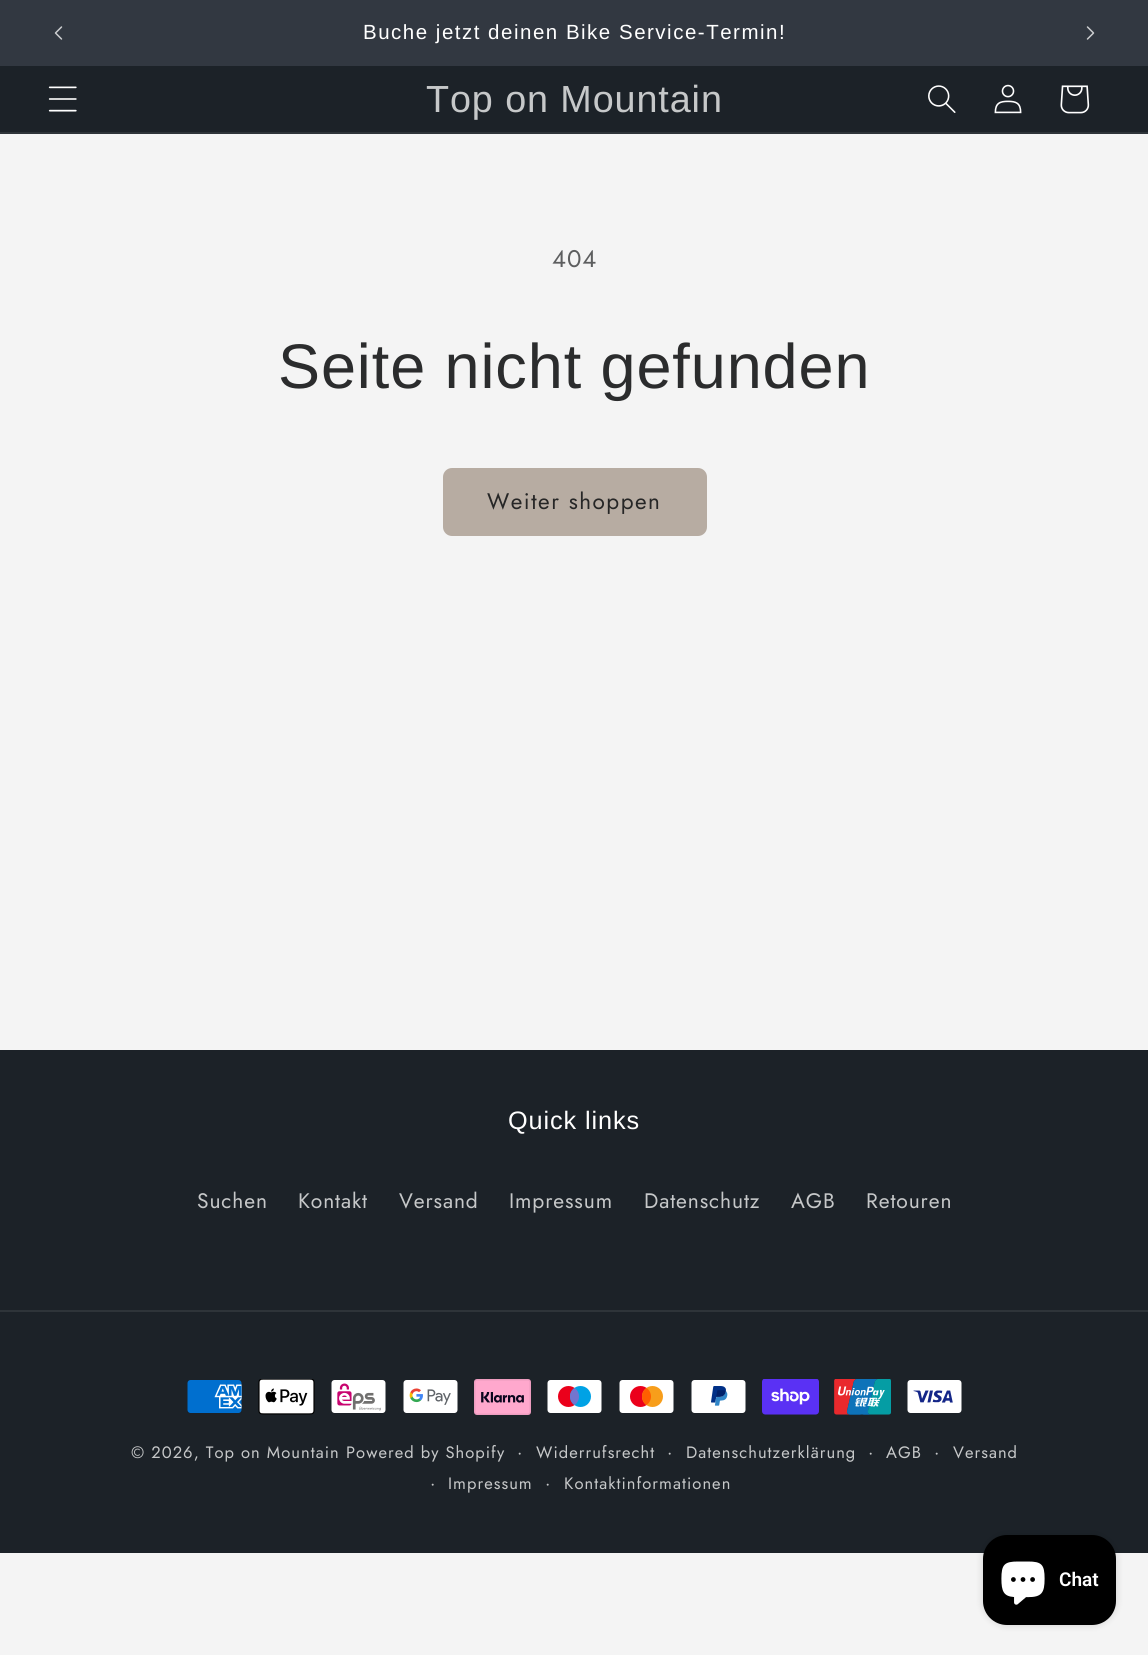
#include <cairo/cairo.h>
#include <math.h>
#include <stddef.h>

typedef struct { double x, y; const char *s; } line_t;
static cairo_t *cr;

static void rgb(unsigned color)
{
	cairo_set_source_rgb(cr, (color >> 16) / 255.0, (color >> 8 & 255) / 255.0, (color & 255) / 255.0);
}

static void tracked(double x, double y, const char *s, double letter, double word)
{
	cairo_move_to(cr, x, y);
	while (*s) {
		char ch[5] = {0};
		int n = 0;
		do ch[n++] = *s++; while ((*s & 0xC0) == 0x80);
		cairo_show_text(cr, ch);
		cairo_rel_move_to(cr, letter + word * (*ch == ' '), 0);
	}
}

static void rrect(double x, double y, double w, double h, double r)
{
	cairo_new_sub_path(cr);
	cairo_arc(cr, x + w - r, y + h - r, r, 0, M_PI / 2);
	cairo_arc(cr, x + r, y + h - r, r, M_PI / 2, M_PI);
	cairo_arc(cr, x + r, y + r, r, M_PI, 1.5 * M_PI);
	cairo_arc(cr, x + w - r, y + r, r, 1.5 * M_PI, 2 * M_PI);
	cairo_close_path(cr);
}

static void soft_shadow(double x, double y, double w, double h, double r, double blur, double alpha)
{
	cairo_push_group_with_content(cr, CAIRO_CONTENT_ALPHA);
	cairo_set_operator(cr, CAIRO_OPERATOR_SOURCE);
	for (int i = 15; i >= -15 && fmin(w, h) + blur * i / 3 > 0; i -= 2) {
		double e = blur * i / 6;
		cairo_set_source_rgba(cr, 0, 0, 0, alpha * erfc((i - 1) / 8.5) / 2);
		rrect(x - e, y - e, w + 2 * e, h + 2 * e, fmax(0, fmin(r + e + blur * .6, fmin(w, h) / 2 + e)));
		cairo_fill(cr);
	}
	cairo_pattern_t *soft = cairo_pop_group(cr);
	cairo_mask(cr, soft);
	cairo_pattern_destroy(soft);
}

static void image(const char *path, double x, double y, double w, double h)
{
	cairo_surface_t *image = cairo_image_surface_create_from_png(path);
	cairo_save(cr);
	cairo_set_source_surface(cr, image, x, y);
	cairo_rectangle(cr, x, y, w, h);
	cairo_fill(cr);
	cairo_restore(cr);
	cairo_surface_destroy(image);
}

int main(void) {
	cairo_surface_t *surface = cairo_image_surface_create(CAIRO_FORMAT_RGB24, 1148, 1655);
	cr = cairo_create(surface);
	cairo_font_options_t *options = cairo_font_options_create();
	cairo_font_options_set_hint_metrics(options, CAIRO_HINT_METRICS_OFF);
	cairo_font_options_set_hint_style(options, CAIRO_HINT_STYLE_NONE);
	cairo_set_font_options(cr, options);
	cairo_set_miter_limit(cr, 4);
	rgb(0xf4f4f4);
	cairo_paint(cr);
	rgb(0x323841);
	cairo_rectangle(cr, 0, 0, 1148, 66);
	cairo_fill(cr);
	image("img/1.png", 54, 26, 9, 14);
	image("img/2.png", 1086, 26, 9, 14);
	rgb(0x1c2228);
	cairo_rectangle(cr, 0, 66, 1148, 66);
	cairo_fill(cr);
	rgb(0x2e3439);
	cairo_rectangle(cr, 0, 132, 1148, 2);
	cairo_fill(cr);
	image("img/3.png", 48, 86, 29, 26);
	image("img/4.png", 928, 85, 28, 28);
	image("img/5.png", 994, 84, 28, 30);
	image("img/6.png", 1060, 85, 30, 29);
	rgb(0xb7aca2);
	rrect(443, 468, 264, 68, 9);
	cairo_fill(cr);
	rgb(0x1c2228);
	cairo_rectangle(cr, 0, 1050, 1148, 503);
	cairo_fill(cr);
	rgb(0x2e3439);
	cairo_rectangle(cr, 0, 1310, 1148, 2);
	cairo_fill(cr);
	image("img/7.png", 187, 1380, 55, 33);
	image("img/8.png", 258, 1379, 57, 36);
	image("img/9.png", 331, 1380, 55, 33);
	image("img/10.png", 403, 1380, 55, 33);
	image("img/11.png", 474, 1379, 57, 36);
	image("img/12.png", 547, 1380, 55, 33);
	image("img/13.png", 619, 1380, 55, 33);
	image("img/14.png", 691, 1380, 55, 33);
	image("img/15.png", 762, 1379, 57, 36);
	image("img/16.png", 834, 1379, 57, 36);
	image("img/17.png", 907, 1380, 55, 33);
	rgb(0x000000);
	soft_shadow(983, 1535, 133, 90, 24, 4, 0.15);
	rgb(0x000000);
	rrect(983, 1535, 133, 90, 24);
	cairo_fill(cr);
	image("img/18.png", 1001, 1561, 44, 44);
	cairo_select_font_face(cr, "Liberation Sans", CAIRO_FONT_SLANT_NORMAL, CAIRO_FONT_WEIGHT_NORMAL);
	cairo_set_font_size(cr, 20.5);
	rgb(0xffffff);
	tracked(363, 39, "Buche jetzt deinen Bike Service-Termin!", 1.5, 0);
	cairo_set_font_size(cr, 37.75);
	rgb(0xc6c8c9);
	tracked(426, 112, "Top on Mountain", 0.9, 0);
	cairo_select_font_face(cr, "Jost", CAIRO_FONT_SLANT_NORMAL, CAIRO_FONT_WEIGHT_NORMAL);
	cairo_set_font_size(cr, 24);
	rgb(0x5d5e5f);
	tracked(552, 267, "404", 0.9, 0);
	cairo_select_font_face(cr, "Liberation Sans", CAIRO_FONT_SLANT_NORMAL, CAIRO_FONT_WEIGHT_NORMAL);
	cairo_set_font_size(cr, 63);
	rgb(0x2b2c2d);
	tracked(278, 388, "Seite nicht gefunden", 0.9, 0);
	cairo_select_font_face(cr, "Jost", CAIRO_FONT_SLANT_NORMAL, CAIRO_FONT_WEIGHT_NORMAL);
	cairo_set_font_size(cr, 22.5);
	rgb(0x262626);
	tracked(487, 509, "Weiter shoppen", 1.5, 0);
	cairo_select_font_face(cr, "Liberation Sans", CAIRO_FONT_SLANT_NORMAL, CAIRO_FONT_WEIGHT_NORMAL);
	cairo_set_font_size(cr, 25.25);
	rgb(0xffffff);
	tracked(508, 1129, "Quick links", 0.9, 0);
	cairo_select_font_face(cr, "Jost", CAIRO_FONT_SLANT_NORMAL, CAIRO_FONT_WEIGHT_NORMAL);
	cairo_set_font_size(cr, 21);
	rgb(0xc6c8c9);
	{
		static const line_t items[] = {
			{197, 1208, "Suchen"},
			{298, 1208, "Kontakt"},
			{399, 1208, "Versand"},
			{509, 1208, "Impressum"},
			{644, 1208, "Datenschutz"},
			{791, 1208, "AGB"},
			{866, 1208, "Retouren"},
		};
		for (size_t i = 0; i < sizeof items / sizeof *items; i++) {
			tracked(items[i].x, items[i].y, items[i].s, 0.9, 0);
		}
	}
	cairo_set_font_size(cr, 16.5);
	tracked(131, 1458, "© 2026, Top on Mountain", 1.05, 0);
	tracked(346, 1458, "Powered by Shopify", 1.05, 0);
	cairo_set_font_size(cr, 18);
	tracked(517, 1458, "·", 1.05, 0);
	cairo_set_font_size(cr, 16.5);
	tracked(536, 1458, "Widerrufsrecht", 1.05, 0);
	cairo_set_font_size(cr, 18);
	tracked(667, 1458, "·", 1.05, 0);
	cairo_set_font_size(cr, 16.5);
	tracked(686, 1458, "Datenschutzerklärung", 1.05, 0);
	cairo_set_font_size(cr, 18);
	tracked(868, 1458, "·", 1.05, 0);
	cairo_set_font_size(cr, 16.5);
	tracked(886, 1458, "AGB", 1.05, 0);
	cairo_set_font_size(cr, 18);
	tracked(934, 1458, "·", 1.05, 0);
	cairo_set_font_size(cr, 16.5);
	tracked(953, 1458, "Versand", 1.05, 0);
	cairo_set_font_size(cr, 18);
	tracked(430, 1489, "·", 1.05, 0);
	cairo_set_font_size(cr, 16.5);
	tracked(448, 1489, "Impressum", 1.05, 0);
	cairo_set_font_size(cr, 18);
	tracked(545, 1489, "·", 1.05, 0);
	cairo_set_font_size(cr, 16.5);
	tracked(564, 1489, "Kontaktinformationen", 1.05, 0);
	cairo_select_font_face(cr, "Roboto SemiBold", CAIRO_FONT_SLANT_NORMAL, CAIRO_FONT_WEIGHT_NORMAL);
	cairo_set_font_size(cr, 19);
	rgb(0xffffff);
	cairo_move_to(cr, 1059, 1586);
	cairo_show_text(cr, "Chat");
	cairo_surface_write_to_png(surface, "page.png");
	cairo_font_options_destroy(options);
	cairo_destroy(cr);
	cairo_surface_destroy(surface);
	return 0;
}
